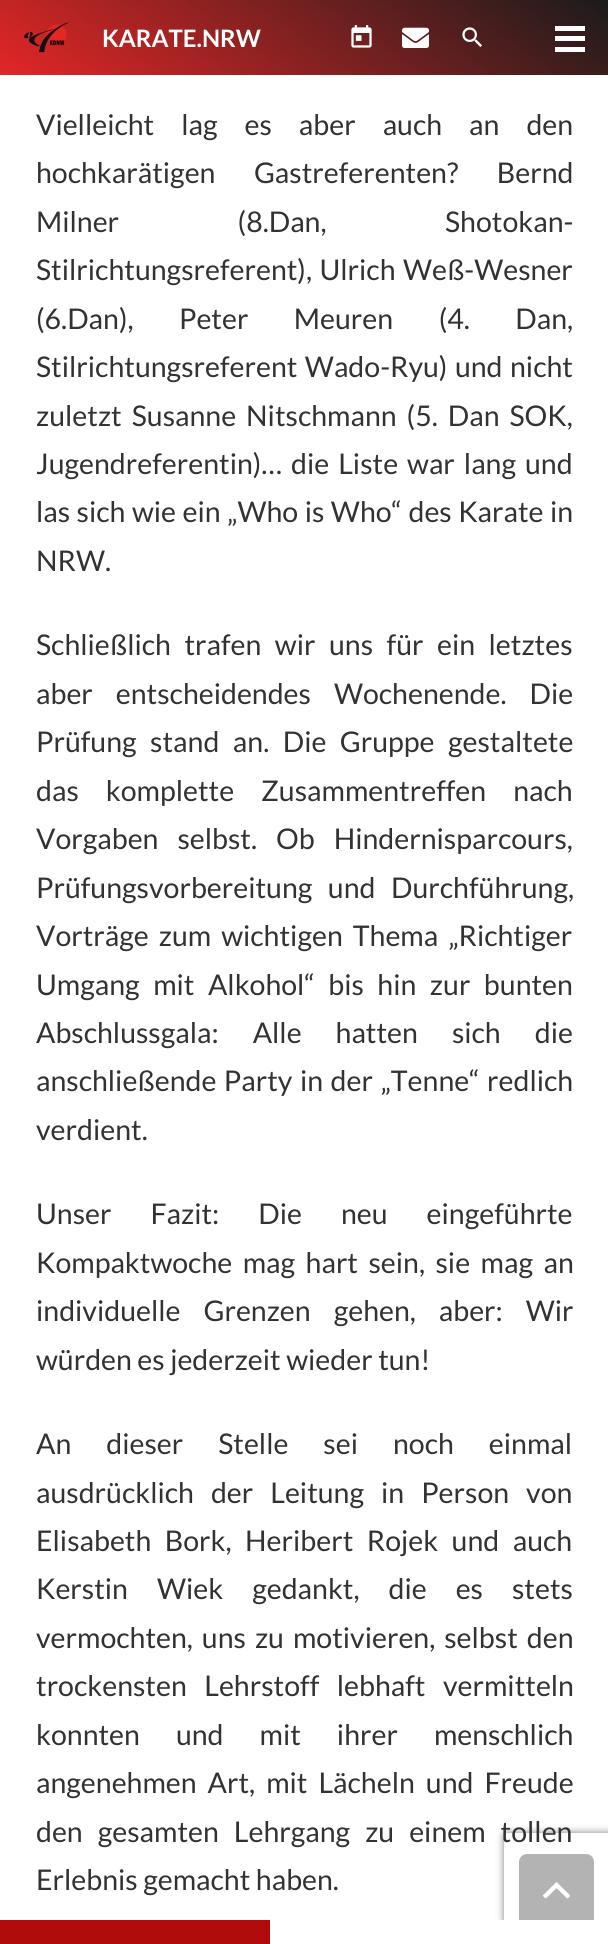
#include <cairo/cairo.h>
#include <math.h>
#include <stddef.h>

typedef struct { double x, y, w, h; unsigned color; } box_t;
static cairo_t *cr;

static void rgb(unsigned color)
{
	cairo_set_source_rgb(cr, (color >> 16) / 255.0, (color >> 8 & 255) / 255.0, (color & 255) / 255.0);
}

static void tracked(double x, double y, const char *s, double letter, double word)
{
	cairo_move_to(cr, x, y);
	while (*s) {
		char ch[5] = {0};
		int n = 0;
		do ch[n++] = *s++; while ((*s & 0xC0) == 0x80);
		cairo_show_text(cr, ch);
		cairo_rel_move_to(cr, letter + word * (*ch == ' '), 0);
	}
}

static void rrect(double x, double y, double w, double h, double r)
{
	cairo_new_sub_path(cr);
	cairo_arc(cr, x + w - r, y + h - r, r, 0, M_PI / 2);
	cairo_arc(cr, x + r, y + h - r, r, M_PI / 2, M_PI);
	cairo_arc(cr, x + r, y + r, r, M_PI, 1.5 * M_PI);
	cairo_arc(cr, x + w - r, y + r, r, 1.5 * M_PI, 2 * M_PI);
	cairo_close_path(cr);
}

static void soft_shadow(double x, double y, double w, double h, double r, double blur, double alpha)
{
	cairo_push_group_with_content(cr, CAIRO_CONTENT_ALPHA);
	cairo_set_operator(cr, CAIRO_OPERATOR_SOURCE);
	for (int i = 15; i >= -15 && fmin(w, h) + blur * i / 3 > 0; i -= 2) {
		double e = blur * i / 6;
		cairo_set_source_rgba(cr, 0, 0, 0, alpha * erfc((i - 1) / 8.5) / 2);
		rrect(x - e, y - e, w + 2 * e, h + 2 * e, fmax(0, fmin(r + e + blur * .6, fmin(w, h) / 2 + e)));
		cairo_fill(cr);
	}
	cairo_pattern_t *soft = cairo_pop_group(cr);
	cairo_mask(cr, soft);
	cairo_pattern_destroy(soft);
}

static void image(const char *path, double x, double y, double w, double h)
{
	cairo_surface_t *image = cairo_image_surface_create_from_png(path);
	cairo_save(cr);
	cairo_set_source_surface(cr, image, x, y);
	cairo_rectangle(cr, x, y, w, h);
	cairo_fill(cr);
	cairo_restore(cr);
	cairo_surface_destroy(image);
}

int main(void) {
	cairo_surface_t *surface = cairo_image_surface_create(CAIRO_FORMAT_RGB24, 608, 1944);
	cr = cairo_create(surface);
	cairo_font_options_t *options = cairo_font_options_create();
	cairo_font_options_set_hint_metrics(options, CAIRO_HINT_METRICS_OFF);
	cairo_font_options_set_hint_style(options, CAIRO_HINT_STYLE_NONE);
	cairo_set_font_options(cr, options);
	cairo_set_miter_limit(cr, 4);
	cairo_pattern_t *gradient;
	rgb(0xffffff);
	cairo_paint(cr);
	gradient = cairo_pattern_create_linear(422, -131, 187, 206);
	cairo_pattern_add_color_stop_rgba(gradient, 0, 0.106, 0.106, 0.106, 1);
	cairo_pattern_add_color_stop_rgba(gradient, 1, 0.89, 0.149, 0.149, 1);
	cairo_set_source(cr, gradient);
	cairo_pattern_destroy(gradient);
	cairo_rectangle(cr, 0, 0, 608, 75);
	cairo_fill(cr);
	image("img/1.png", 24, 22, 45, 31);
	image("img/2.png", 351, 25, 21, 23);
	image("img/3.png", 402, 27, 27, 21);
	image("img/4.png", 462, 27, 20, 20);
	{
		static const box_t items[] = {
			{555, 36, 30, 5, 0xffffff},
			{555, 26, 30, 5, 0xffffff},
			{555, 47, 30, 5, 0xffffff},
		};
		for (size_t i = 0; i < sizeof items / sizeof *items; i++) {
			rgb(items[i].color);
			cairo_rectangle(cr, items[i].x, items[i].y, items[i].w, items[i].h);
			cairo_fill(cr);
		}
	}
	cairo_save(cr);
	cairo_set_fill_rule(cr, CAIRO_FILL_RULE_EVEN_ODD);
	cairo_new_path(cr);
	cairo_move_to(cr, 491, 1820);
	cairo_line_to(cr, 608, 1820);
	cairo_line_to(cr, 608, 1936);
	cairo_line_to(cr, 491, 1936);
	cairo_close_path(cr);
	cairo_move_to(cr, 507, 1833);
	cairo_line_to(cr, 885, 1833);
	cairo_curve_to(cr, 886.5, 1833, 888, 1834.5, 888, 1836);
	cairo_line_to(cr, 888, 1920);
	cairo_curve_to(cr, 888, 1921.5, 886.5, 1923, 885, 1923);
	cairo_line_to(cr, 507, 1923);
	cairo_curve_to(cr, 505.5, 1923, 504, 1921.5, 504, 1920);
	cairo_line_to(cr, 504, 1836);
	cairo_curve_to(cr, 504, 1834.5, 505.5, 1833, 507, 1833);
	cairo_close_path(cr);
	cairo_clip(cr);
	rgb(0x808080);
	soft_shadow(504, 1833, 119, 90, 3, 4, 1);
	cairo_restore(cr);
	cairo_set_source_rgba(cr, 0, 0, 0, 0.3);
	rrect(519, 1854, 75, 75, 8);
	cairo_fill(cr);
	image("img/5.png", 543, 1882, 27, 17);
	rgb(0xffffff);
	cairo_rectangle(cr, 497, 1920, 111, 11);
	cairo_fill(cr);
	rgb(0xb00c0c);
	cairo_rectangle(cr, 0, 1920, 270, 24);
	cairo_fill(cr);
	cairo_select_font_face(cr, "Lato", CAIRO_FONT_SLANT_NORMAL, CAIRO_FONT_WEIGHT_BOLD);
	cairo_set_font_size(cr, 24);
	rgb(0xffffff);
	cairo_move_to(cr, 102, 47);
	cairo_show_text(cr, "KARATE.NRW");
	cairo_select_font_face(cr, "Lato", CAIRO_FONT_SLANT_NORMAL, CAIRO_FONT_WEIGHT_NORMAL);
	cairo_set_font_size(cr, 28.5);
	rgb(0x313233);
	tracked(36, 135, "Vielleicht lag es aber auch an den", 0, 21.5);
	tracked(36, 183, "hochkarätigen Gastreferenten? Bernd", 0, 33);
	tracked(36, 232, "Milner (8.Dan, Shotokan-", 0, 113);
	tracked(36, 280, "Stilrichtungsreferent), Ulrich Weß-Wesner", 0, 2);
	tracked(36, 329, "(6.Dan), Peter Meuren (4. Dan,", 0, 40);
	tracked(36, 377, "Stilrichtungsreferent Wado-Ryu) und nicht", 0, 2);
	tracked(36, 426, "zuletzt Susanne Nitschmann (5. Dan SOK,", 0, 4.5);
	tracked(36, 474, "Jugendreferentin)… die Liste war lang und", 0, 3.5);
	tracked(36, 522, "las sich wie ein „Who is Who“ des Karate in", 0, 1);
	cairo_move_to(cr, 36, 571);
	cairo_show_text(cr, "NRW.");
	tracked(36, 655, "Schließlich trafen wir uns für ein letztes", 0, 8);
	tracked(36, 704, "aber entscheidendes Wochenende. Die", 0, 17.5);
	tracked(36, 752, "Prüfung stand an. Die Gruppe gestaltete", 0, 8);
	tracked(36, 801, "das komplette Zusammentreffen nach", 0, 21.5);
	tracked(36, 849, "Vorgaben selbst. Ob Hindernisparcours,", 0, 13.5);
	tracked(36, 898, "Prüfungsvorbereitung und Durchführung,", 0, 10);
	tracked(36, 946, "Vorträge zum wichtigen Thema „Richtiger", 0, 4.5);
	tracked(36, 995, "Umgang mit Alkohol“ bis hin zur bunten", 0, 8);
	tracked(36, 1043, "Abschlussgala: Alle hatten sich die", 0, 28.5);
	tracked(36, 1091, "anschließende Party in der „Tenne“ redlich", 0, 2);
	cairo_move_to(cr, 36, 1140);
	cairo_show_text(cr, "verdient.");
	tracked(36, 1224, "Unser Fazit: Die neu eingeführte", 0, 33.5);
	tracked(36, 1273, "Kompaktwoche mag hart sein, sie mag an", 0, 5);
	tracked(36, 1321, "individuelle Grenzen gehen, aber: Wir", 0, 17.5);
	cairo_move_to(cr, 36, 1370);
	cairo_show_text(cr, "würden es jederzeit wieder tun!");
	tracked(36, 1454, "An dieser Stelle sei noch einmal", 0, 29.5);
	tracked(36, 1503, "ausdrücklich der Leitung in Person von", 0, 11.5);
	tracked(36, 1551, "Elisabeth Bork, Heribert Rojek und auch", 0, 8);
	tracked(36, 1599, "Kerstin Wiek gedankt, die es stets", 0, 23.5);
	tracked(36, 1648, "vermochten, uns zu motivieren, selbst den", 0, 3.5);
	tracked(36, 1696, "trockensten Lehrstoff lebhaft vermitteln", 0, 12);
	tracked(36, 1745, "konnten und mit ihrer menschlich", 0, 30.5);
	tracked(36, 1793, "angenehmen Art, mit Lächeln und Freude", 0, 5.5);
	tracked(36, 1842, "den gesamten Lehrgang zu einem tollen", 0, 9.5);
	cairo_move_to(cr, 36, 1890);
	cairo_show_text(cr, "Erlebnis gemacht haben.");
	cairo_surface_write_to_png(surface, "page.png");
	cairo_font_options_destroy(options);
	cairo_destroy(cr);
	cairo_surface_destroy(surface);
	return 0;
}
